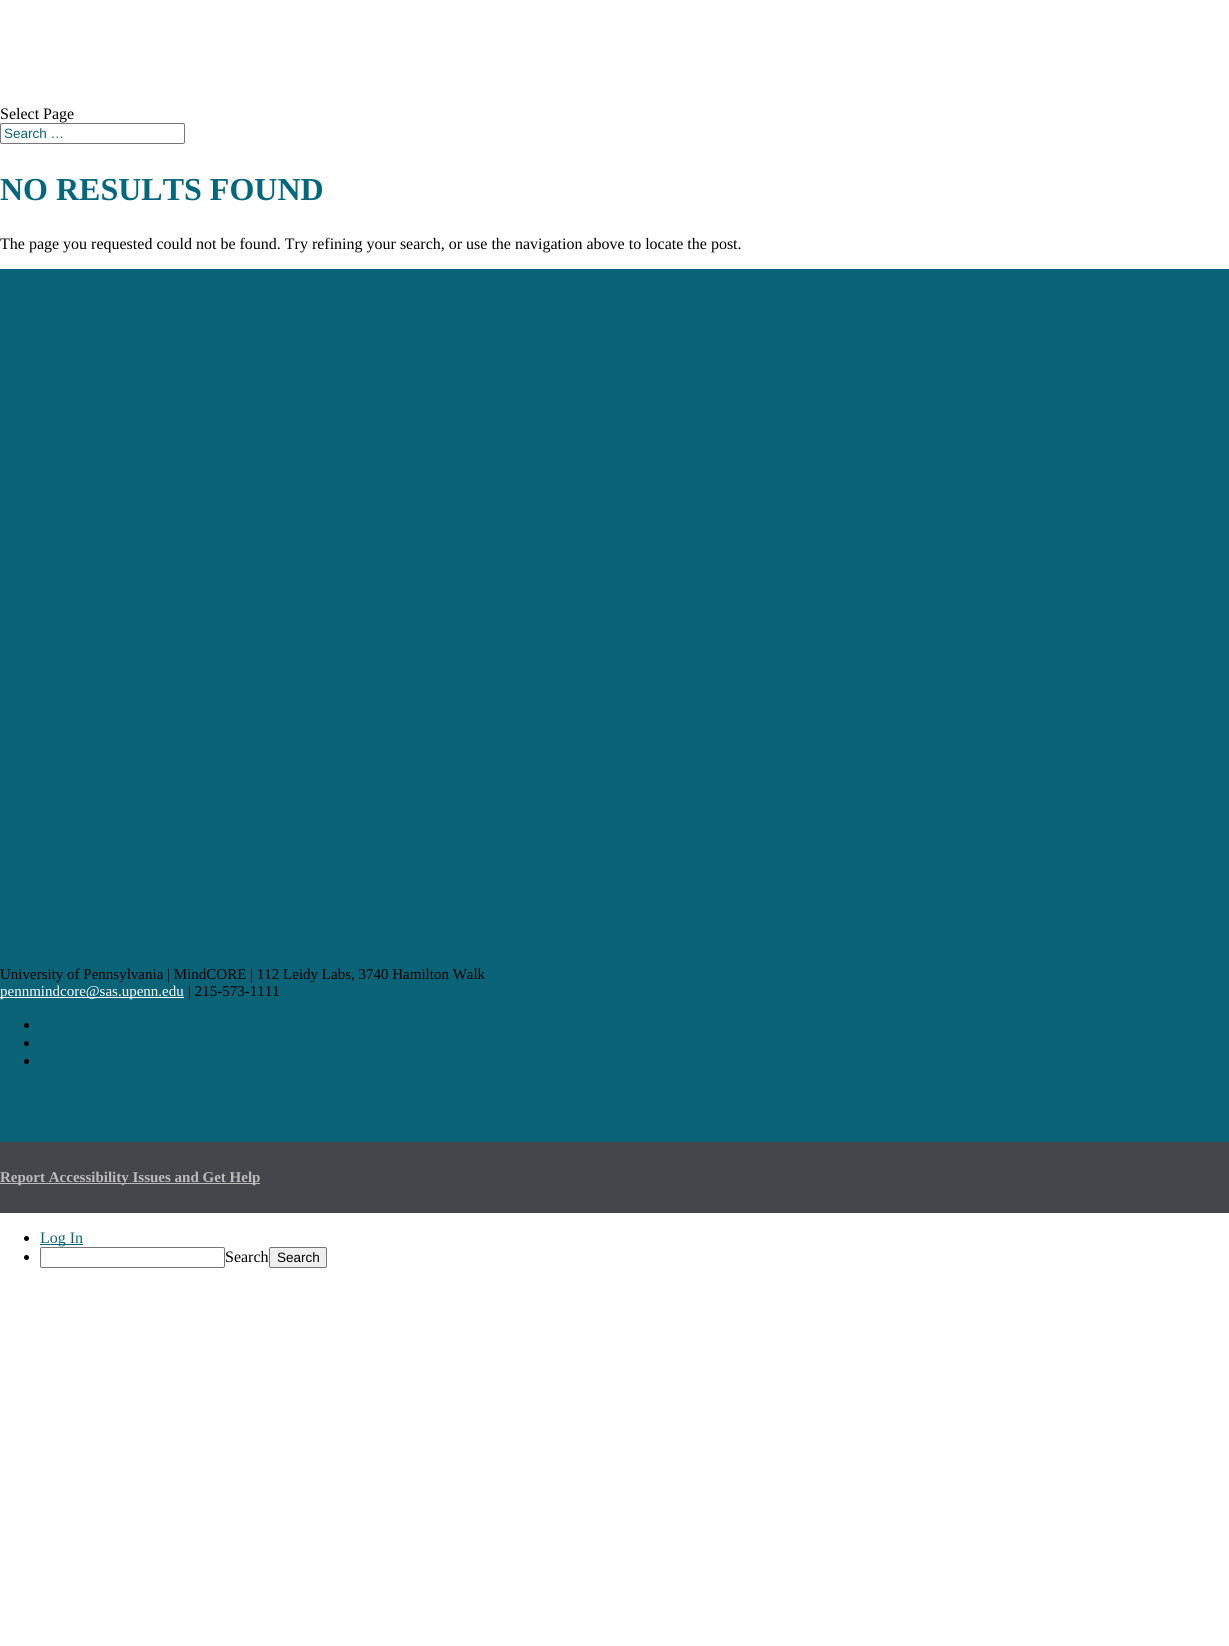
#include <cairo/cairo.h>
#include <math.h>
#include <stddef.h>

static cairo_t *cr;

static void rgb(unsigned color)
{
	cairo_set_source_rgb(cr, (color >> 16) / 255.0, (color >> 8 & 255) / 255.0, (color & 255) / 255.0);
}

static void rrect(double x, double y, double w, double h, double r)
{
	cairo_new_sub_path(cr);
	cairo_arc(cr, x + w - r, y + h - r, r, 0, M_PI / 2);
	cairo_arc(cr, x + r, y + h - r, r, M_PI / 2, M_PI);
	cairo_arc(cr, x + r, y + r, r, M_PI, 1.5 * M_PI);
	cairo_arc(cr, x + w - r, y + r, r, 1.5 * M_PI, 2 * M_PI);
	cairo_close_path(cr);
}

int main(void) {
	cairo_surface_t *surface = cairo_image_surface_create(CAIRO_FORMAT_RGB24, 1229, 1646);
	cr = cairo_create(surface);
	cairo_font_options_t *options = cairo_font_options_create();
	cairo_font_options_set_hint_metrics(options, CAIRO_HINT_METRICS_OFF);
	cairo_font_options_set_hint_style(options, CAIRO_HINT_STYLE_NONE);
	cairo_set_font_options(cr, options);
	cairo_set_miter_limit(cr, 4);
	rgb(0xffffff);
	cairo_paint(cr);
	rrect(0.5, 123.5, 184, 20, 1.5);
	rgb(0x767676);
	cairo_set_line_width(cr, 1);
	cairo_stroke(cr);
	rgb(0x0b6377);
	cairo_rectangle(cr, 0, 269, 1229, 873);
	cairo_fill(cr);
	rgb(0xffffff);
	cairo_rectangle(cr, 0, 997, 184, 1);
	cairo_fill(cr);
	rgb(0x000000);
	cairo_arc(cr, 26.5, 1025.5, 2.5, 0, 2 * M_PI);
	cairo_fill(cr);
	cairo_arc(cr, 26.5, 1043.5, 2.5, 0, 2 * M_PI);
	cairo_fill(cr);
	cairo_arc(cr, 26.5, 1061.5, 2.5, 0, 2 * M_PI);
	cairo_fill(cr);
	rgb(0x45464b);
	cairo_rectangle(cr, 0, 1142, 1229, 71);
	cairo_fill(cr);
	rgb(0xbcbcbc);
	cairo_rectangle(cr, 0, 1183, 260, 1);
	cairo_fill(cr);
	rgb(0x000000);
	cairo_arc(cr, 26.5, 1238.5, 2.5, 0, 2 * M_PI);
	cairo_fill(cr);
	rgb(0x0b6377);
	cairo_rectangle(cr, 40, 1244, 43, 1);
	cairo_fill(cr);
	rgb(0x000000);
	cairo_arc(cr, 26.5, 1257.5, 2.5, 0, 2 * M_PI);
	cairo_fill(cr);
	rrect(40.5, 1247.5, 184, 20, 1.5);
	rgb(0x767676);
	cairo_stroke(cr);
	rgb(0xefefef);
	rrect(269.5, 1247.5, 57, 20, 1.5);
	cairo_fill_preserve(cr);
	rgb(0x767676);
	cairo_stroke(cr);
	cairo_select_font_face(cr, "Liberation Serif", CAIRO_FONT_SLANT_NORMAL, CAIRO_FONT_WEIGHT_NORMAL);
	cairo_set_font_size(cr, 16);
	rgb(0x000000);
	cairo_move_to(cr, 0, 119);
	cairo_show_text(cr, "Select Page");
	cairo_select_font_face(cr, "Liberation Sans", CAIRO_FONT_SLANT_NORMAL, CAIRO_FONT_WEIGHT_NORMAL);
	cairo_set_font_size(cr, 13.5);
	rgb(0x0b6377);
	cairo_move_to(cr, 4, 138);
	cairo_show_text(cr, "Search …");
	cairo_select_font_face(cr, "Liberation Serif", CAIRO_FONT_SLANT_NORMAL, CAIRO_FONT_WEIGHT_BOLD);
	cairo_set_font_size(cr, 32);
	rgb(0x05677d);
	cairo_move_to(cr, 0, 200);
	cairo_show_text(cr, "NO RESULTS FOUND");
	cairo_select_font_face(cr, "Liberation Serif", CAIRO_FONT_SLANT_NORMAL, CAIRO_FONT_WEIGHT_NORMAL);
	cairo_set_font_size(cr, 16);
	rgb(0x000000);
	cairo_move_to(cr, 0, 249);
	cairo_show_text(cr, "The page you requested could not be found. Try refining your search, or use the navigation above to locate the post.");
	cairo_set_font_size(cr, 15);
	cairo_move_to(cr, 0, 979);
	cairo_show_text(cr, "University of Pennsylvania | MindCORE | 112 Leidy Labs, 3740 Hamilton Walk");
	rgb(0xffffff);
	cairo_move_to(cr, 0, 996);
	cairo_show_text(cr, "pennmindcore@sas.upenn.edu");
	rgb(0x000000);
	cairo_move_to(cr, 188, 996);
	cairo_show_text(cr, "| 215-573-1111");
	cairo_select_font_face(cr, "Liberation Serif", CAIRO_FONT_SLANT_NORMAL, CAIRO_FONT_WEIGHT_BOLD);
	rgb(0xbcbcbc);
	cairo_move_to(cr, 0, 1182);
	cairo_show_text(cr, "Report Accessibility Issues and Get Help");
	cairo_select_font_face(cr, "Liberation Serif", CAIRO_FONT_SLANT_NORMAL, CAIRO_FONT_WEIGHT_NORMAL);
	cairo_set_font_size(cr, 16);
	rgb(0x0b6377);
	cairo_move_to(cr, 40, 1243);
	cairo_show_text(cr, "Log In");
	rgb(0x000000);
	cairo_move_to(cr, 225, 1262);
	cairo_show_text(cr, "Search");
	cairo_select_font_face(cr, "Liberation Sans", CAIRO_FONT_SLANT_NORMAL, CAIRO_FONT_WEIGHT_NORMAL);
	cairo_set_font_size(cr, 13.5);
	cairo_move_to(cr, 277, 1262);
	cairo_show_text(cr, "Search");
	cairo_surface_write_to_png(surface, "page.png");
	cairo_font_options_destroy(options);
	cairo_destroy(cr);
	cairo_surface_destroy(surface);
	return 0;
}
